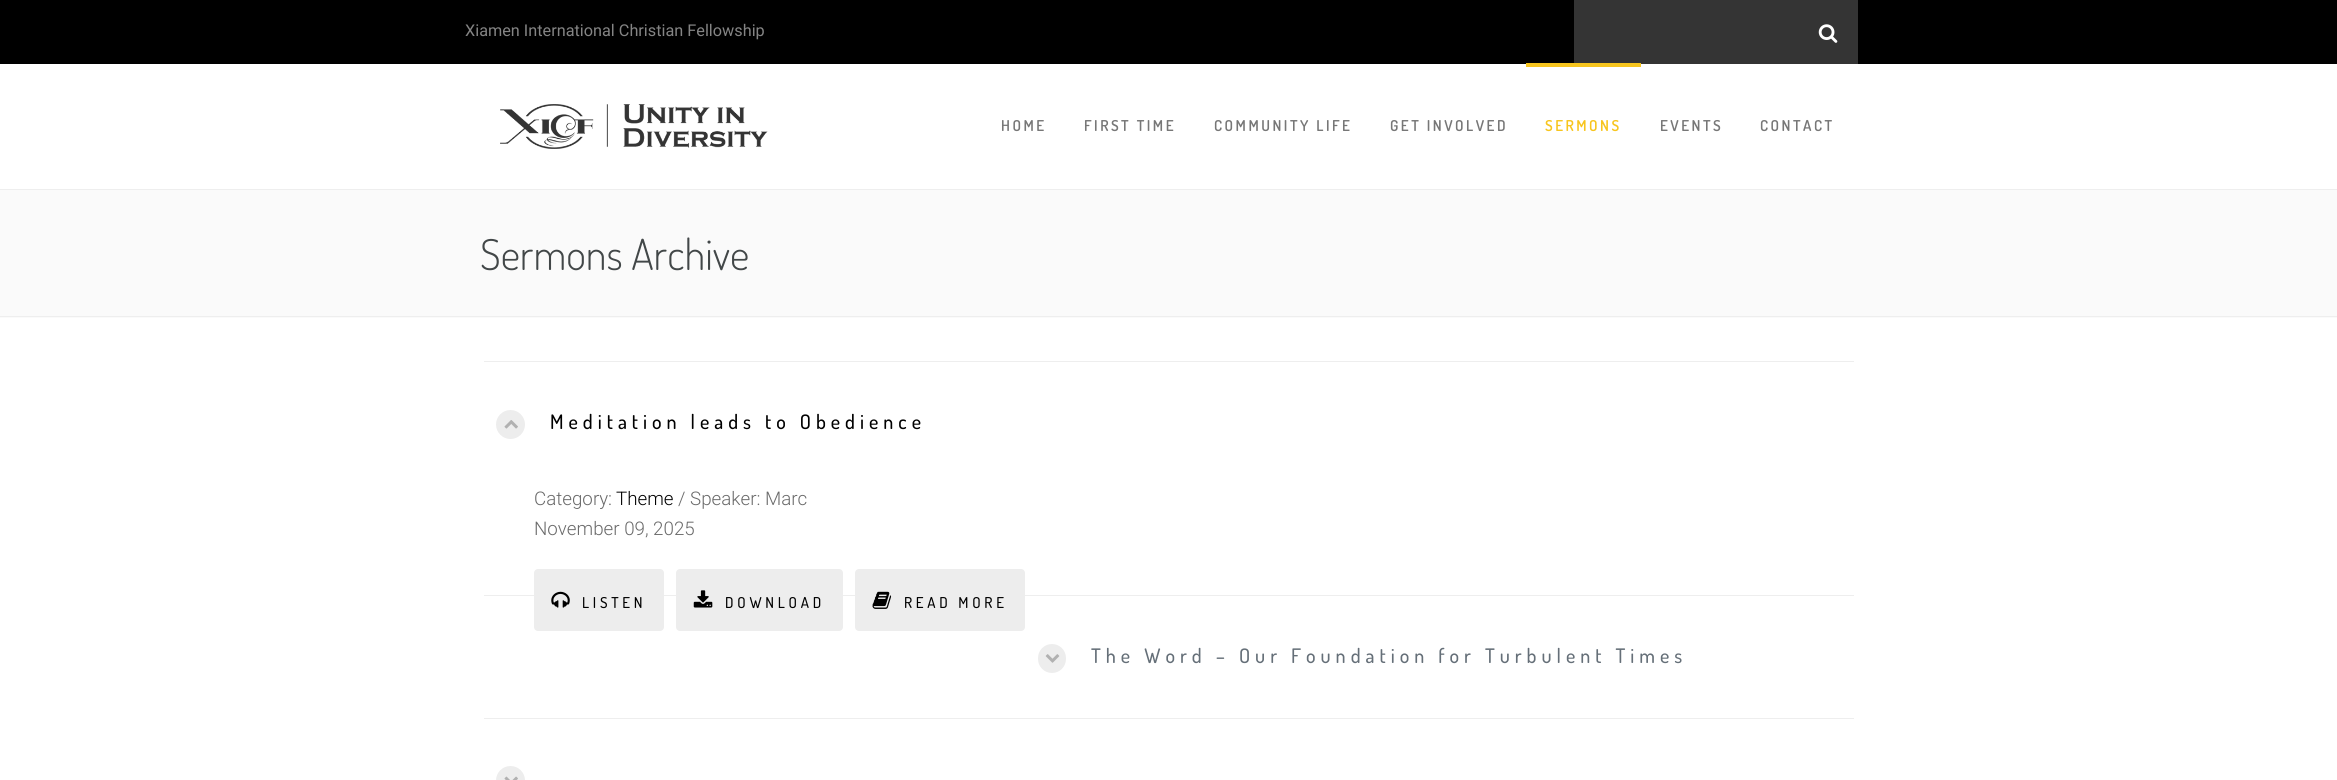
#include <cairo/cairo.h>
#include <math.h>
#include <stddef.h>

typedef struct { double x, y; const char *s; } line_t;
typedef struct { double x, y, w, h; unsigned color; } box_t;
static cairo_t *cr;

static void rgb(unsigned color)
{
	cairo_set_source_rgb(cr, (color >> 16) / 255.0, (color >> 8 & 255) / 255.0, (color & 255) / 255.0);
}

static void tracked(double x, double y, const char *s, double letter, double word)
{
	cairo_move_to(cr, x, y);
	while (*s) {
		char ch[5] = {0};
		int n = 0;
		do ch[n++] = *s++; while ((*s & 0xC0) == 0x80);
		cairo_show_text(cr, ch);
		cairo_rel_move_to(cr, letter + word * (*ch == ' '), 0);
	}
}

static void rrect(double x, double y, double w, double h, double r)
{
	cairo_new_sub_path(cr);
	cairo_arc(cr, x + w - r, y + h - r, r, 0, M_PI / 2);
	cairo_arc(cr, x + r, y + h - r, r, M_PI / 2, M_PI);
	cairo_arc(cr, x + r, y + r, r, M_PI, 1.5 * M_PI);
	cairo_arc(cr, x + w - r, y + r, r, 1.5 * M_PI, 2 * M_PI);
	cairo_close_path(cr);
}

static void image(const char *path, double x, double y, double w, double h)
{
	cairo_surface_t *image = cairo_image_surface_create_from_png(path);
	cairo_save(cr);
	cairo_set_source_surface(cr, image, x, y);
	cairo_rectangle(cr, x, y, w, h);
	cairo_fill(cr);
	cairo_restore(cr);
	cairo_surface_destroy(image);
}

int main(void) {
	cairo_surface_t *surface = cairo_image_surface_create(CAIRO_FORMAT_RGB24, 2337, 780);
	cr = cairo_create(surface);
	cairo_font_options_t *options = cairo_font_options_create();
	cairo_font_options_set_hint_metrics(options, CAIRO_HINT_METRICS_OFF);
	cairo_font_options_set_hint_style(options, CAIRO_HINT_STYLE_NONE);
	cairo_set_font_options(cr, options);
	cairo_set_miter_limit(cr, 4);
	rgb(0xffffff);
	cairo_paint(cr);
	rgb(0x000000);
	cairo_rectangle(cr, 0, 0, 2337, 64);
	cairo_fill(cr);
	rgb(0x343434);
	cairo_rectangle(cr, 1574, 0, 284, 64);
	cairo_fill(cr);
	image("img/1.png", 1818, 24, 20, 19);
	image("img/2.png", 500, 104, 268, 45);
	{
		static const box_t items[] = {
			{1526, 63, 115, 4, 0xf7c51e},
			{0, 190, 2337, 128, 0xfafafa},
			{0, 189, 2337, 1, 0xeeeeee},
			{0, 316, 2337, 1, 0xeeeeee},
			{484, 361, 1370, 1, 0xeeeeee},
		};
		for (size_t i = 0; i < sizeof items / sizeof *items; i++) {
			rgb(items[i].color);
			cairo_rectangle(cr, items[i].x, items[i].y, items[i].w, items[i].h);
			cairo_fill(cr);
		}
	}
	rgb(0xededed);
	cairo_arc(cr, 510.5, 424.5, 14.5, 0, 2 * M_PI);
	cairo_fill(cr);
	image("img/3.png", 504, 420, 14, 9);
	rgb(0xeeeeee);
	cairo_rectangle(cr, 484, 595, 1370, 1);
	cairo_fill(cr);
	rgb(0xededed);
	rrect(534, 569, 130, 62, 4);
	cairo_fill(cr);
	image("img/4.png", 551, 591, 19, 17);
	rrect(676, 569, 167, 62, 4);
	cairo_fill(cr);
	image("img/5.png", 693, 590, 20, 18);
	rrect(855, 569, 170, 62, 4);
	cairo_fill(cr);
	image("img/6.png", 872, 591, 20, 18);
	rrect(1038, 644, 28, 29, 14);
	cairo_fill(cr);
	image("img/7.png", 1045, 654, 15, 9);
	rgb(0xeeeeee);
	cairo_rectangle(cr, 484, 718, 1370, 1);
	cairo_fill(cr);
	rgb(0xededed);
	cairo_arc(cr, 510.5, 780.5, 14.5, 0, 2 * M_PI);
	cairo_fill(cr);
	image("img/8.png", 504, 776, 14, 4);
	cairo_select_font_face(cr, "Roboto", CAIRO_FONT_SLANT_NORMAL, CAIRO_FONT_WEIGHT_NORMAL);
	cairo_set_font_size(cr, 16.25);
	rgb(0x848484);
	cairo_move_to(cr, 465, 36);
	cairo_show_text(cr, "Xiamen International Christian Fellowship");
	cairo_select_font_face(cr, "Dosis SemiBold", CAIRO_FONT_SLANT_NORMAL, CAIRO_FONT_WEIGHT_NORMAL);
	cairo_set_font_size(cr, 15);
	rgb(0x777777);
	{
		static const line_t items[] = {
			{1001, 131, "HOME"},
			{1084, 131, "FIRST TIME"},
			{1214, 131, "COMMUNITY LIFE"},
			{1390, 131, "GET INVOLVED"},
		};
		for (size_t i = 0; i < sizeof items / sizeof *items; i++) {
			tracked(items[i].x, items[i].y, items[i].s, 2.5, 0);
		}
	}
	rgb(0xf7c51e);
	tracked(1545, 131, "SERMONS", 2.5, 0);
	rgb(0x777777);
	tracked(1660, 131, "EVENTS", 2.5, 0);
	tracked(1760, 131, "CONTACT", 2.5, 0);
	cairo_select_font_face(cr, "Dosis Light", CAIRO_FONT_SLANT_NORMAL, CAIRO_FONT_WEIGHT_NORMAL);
	cairo_set_font_size(cr, 42.5);
	rgb(0x424748);
	cairo_move_to(cr, 480, 270);
	cairo_show_text(cr, "Sermons Archive");
	cairo_select_font_face(cr, "Dosis Medium", CAIRO_FONT_SLANT_NORMAL, CAIRO_FONT_WEIGHT_NORMAL);
	cairo_set_font_size(cr, 20);
	rgb(0x000000);
	tracked(550, 429, "Meditation leads to Obedience", 5, 0);
	cairo_select_font_face(cr, "Roboto Light", CAIRO_FONT_SLANT_NORMAL, CAIRO_FONT_WEIGHT_NORMAL);
	cairo_set_font_size(cr, 18.75);
	rgb(0x6a6a6a);
	cairo_move_to(cr, 534, 505);
	cairo_show_text(cr, "Category:");
	rgb(0x000000);
	cairo_move_to(cr, 616, 505);
	cairo_show_text(cr, "Theme");
	rgb(0x6a6a6a);
	cairo_move_to(cr, 678, 505);
	cairo_show_text(cr, "/ Speaker: Marc");
	cairo_move_to(cr, 534, 535);
	cairo_show_text(cr, "November 09, 2025");
	cairo_select_font_face(cr, "Dosis Medium", CAIRO_FONT_SLANT_NORMAL, CAIRO_FONT_WEIGHT_NORMAL);
	cairo_set_font_size(cr, 15);
	rgb(0x000000);
	{
		static const line_t items[] = {
			{582, 608, "LISTEN"},
			{725, 608, "DOWNLOAD"},
			{904, 608, "READ MORE"},
		};
		for (size_t i = 0; i < sizeof items / sizeof *items; i++) {
			tracked(items[i].x, items[i].y, items[i].s, 3.75, 0);
		}
	}
	cairo_set_font_size(cr, 20);
	rgb(0x656f78);
	tracked(1091, 663, "The Word – Our Foundation for Turbulent Times", 5, 0);
	cairo_surface_write_to_png(surface, "page.png");
	cairo_font_options_destroy(options);
	cairo_destroy(cr);
	cairo_surface_destroy(surface);
	return 0;
}
